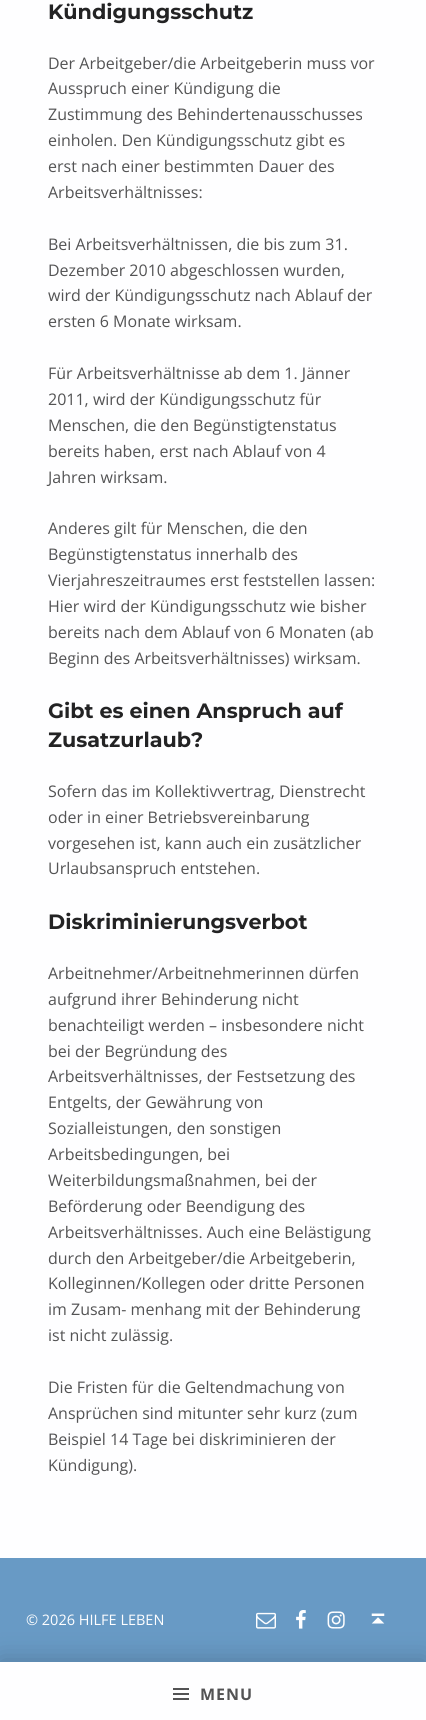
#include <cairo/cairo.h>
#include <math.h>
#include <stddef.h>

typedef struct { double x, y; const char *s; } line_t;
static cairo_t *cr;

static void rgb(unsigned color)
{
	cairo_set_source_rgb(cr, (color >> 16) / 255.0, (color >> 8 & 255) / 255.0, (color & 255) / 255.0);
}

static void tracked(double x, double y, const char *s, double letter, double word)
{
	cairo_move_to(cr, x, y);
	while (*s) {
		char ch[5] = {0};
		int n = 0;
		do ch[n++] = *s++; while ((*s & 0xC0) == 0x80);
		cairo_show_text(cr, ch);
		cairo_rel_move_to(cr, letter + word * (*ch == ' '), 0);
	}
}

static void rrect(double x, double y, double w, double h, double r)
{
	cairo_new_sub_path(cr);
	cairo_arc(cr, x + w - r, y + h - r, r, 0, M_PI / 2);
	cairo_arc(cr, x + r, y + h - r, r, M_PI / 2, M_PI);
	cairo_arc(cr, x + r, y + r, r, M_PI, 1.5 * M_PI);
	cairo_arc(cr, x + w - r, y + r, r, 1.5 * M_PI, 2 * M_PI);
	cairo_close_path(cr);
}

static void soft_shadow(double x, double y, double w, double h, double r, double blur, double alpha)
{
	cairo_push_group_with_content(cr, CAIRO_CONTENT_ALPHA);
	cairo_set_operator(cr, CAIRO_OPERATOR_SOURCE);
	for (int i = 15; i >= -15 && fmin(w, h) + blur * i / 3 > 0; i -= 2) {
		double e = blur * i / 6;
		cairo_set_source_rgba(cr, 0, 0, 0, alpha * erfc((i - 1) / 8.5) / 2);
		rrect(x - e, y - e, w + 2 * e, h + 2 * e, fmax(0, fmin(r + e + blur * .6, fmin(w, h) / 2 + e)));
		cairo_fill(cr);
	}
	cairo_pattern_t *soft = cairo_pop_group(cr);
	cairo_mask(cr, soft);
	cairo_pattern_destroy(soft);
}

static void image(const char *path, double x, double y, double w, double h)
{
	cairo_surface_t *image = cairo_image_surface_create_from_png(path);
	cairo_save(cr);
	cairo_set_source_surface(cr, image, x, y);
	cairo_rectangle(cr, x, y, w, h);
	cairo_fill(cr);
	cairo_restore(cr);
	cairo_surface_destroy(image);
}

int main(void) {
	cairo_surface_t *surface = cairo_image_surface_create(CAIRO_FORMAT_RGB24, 426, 1720);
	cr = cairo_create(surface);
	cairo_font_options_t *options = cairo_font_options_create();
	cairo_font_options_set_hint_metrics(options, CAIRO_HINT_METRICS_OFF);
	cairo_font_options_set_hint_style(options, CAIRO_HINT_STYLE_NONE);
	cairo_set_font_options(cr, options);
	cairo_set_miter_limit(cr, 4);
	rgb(0xfefeff);
	cairo_paint(cr);
	rgb(0x689ac5);
	cairo_rectangle(cr, 0, 1558, 426, 104);
	cairo_fill(cr);
	image("img/1.png", 256, 1612, 20, 17);
	image("img/2.png", 296, 1610, 10, 19);
	image("img/3.png", 327, 1611, 18, 18);
	image("img/4.png", 371, 1613, 14, 11);
	rgb(0x000000);
	soft_shadow(0, 1660, 426, 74, 0, 13, 0.2);
	rgb(0xfefeff);
	cairo_rectangle(cr, 0, 1662, 426, 58);
	cairo_fill(cr);
	image("img/5.png", 173, 1688, 16, 12);
	cairo_select_font_face(cr, "Montserrat", CAIRO_FONT_SLANT_NORMAL, CAIRO_FONT_WEIGHT_BOLD);
	cairo_set_font_size(cr, 20.75);
	rgb(0x232324);
	cairo_move_to(cr, 48, 19);
	cairo_show_text(cr, "Kündigungsschutz");
	cairo_select_font_face(cr, "Open Sans", CAIRO_FONT_SLANT_NORMAL, CAIRO_FONT_WEIGHT_NORMAL);
	cairo_set_font_size(cr, 16);
	rgb(0x535354);
	{
		static const line_t items[] = {
			{48, 69, "Der Arbeitgeber/die Arbeitgeberin muss vor"},
			{48, 94, "Ausspruch einer Kündigung die"},
			{48, 120, "Zustimmung des Behindertenausschusses"},
			{48, 146, "einholen. Den Kündigungsschutz gibt es"},
			{48, 172, "erst nach einer bestimmten Dauer des"},
			{48, 198, "Arbeitsverhältnisses:"},
			{48, 250, "Bei Arbeitsverhältnissen, die bis zum 31."},
			{48, 276, "Dezember 2010 abgeschlossen wurden,"},
			{48, 301, "wird der Kündigungsschutz nach Ablauf der"},
			{48, 327, "ersten 6 Monate wirksam."},
			{48, 379, "Für Arbeitsverhältnisse ab dem 1. Jänner"},
			{48, 405, "2011, wird der Kündigungsschutz für"},
			{48, 431, "Menschen, die den Begünstigtenstatus"},
			{48, 457, "bereits haben, erst nach Ablauf von 4"},
			{48, 483, "Jahren wirksam."},
			{48, 534, "Anderes gilt für Menschen, die den"},
			{48, 560, "Begünstigtenstatus innerhalb des"},
			{48, 586, "Vierjahreszeitraumes erst feststellen lassen:"},
			{48, 612, "Hier wird der Kündigungsschutz wie bisher"},
			{48, 638, "bereits nach dem Ablauf von 6 Monaten (ab"},
			{48, 664, "Beginn des Arbeitsverhältnisses) wirksam."},
		};
		for (size_t i = 0; i < sizeof items / sizeof *items; i++) {
			cairo_move_to(cr, items[i].x, items[i].y);
			cairo_show_text(cr, items[i].s);
		}
	}
	cairo_select_font_face(cr, "Montserrat", CAIRO_FONT_SLANT_NORMAL, CAIRO_FONT_WEIGHT_BOLD);
	cairo_set_font_size(cr, 20.75);
	rgb(0x232324);
	cairo_move_to(cr, 48, 718);
	cairo_show_text(cr, "Gibt es einen Anspruch auf");
	cairo_move_to(cr, 48, 747);
	cairo_show_text(cr, "Zusatzurlaub?");
	cairo_select_font_face(cr, "Open Sans", CAIRO_FONT_SLANT_NORMAL, CAIRO_FONT_WEIGHT_NORMAL);
	cairo_set_font_size(cr, 16);
	rgb(0x535354);
	{
		static const line_t items[] = {
			{48, 797, "Sofern das im Kollektivvertrag, Dienstrecht"},
			{48, 823, "oder in einer Betriebsvereinbarung"},
			{48, 849, "vorgesehen ist, kann auch ein zusätzlicher"},
			{48, 874, "Urlaubsanspruch entstehen."},
		};
		for (size_t i = 0; i < sizeof items / sizeof *items; i++) {
			cairo_move_to(cr, items[i].x, items[i].y);
			cairo_show_text(cr, items[i].s);
		}
	}
	cairo_select_font_face(cr, "Montserrat", CAIRO_FONT_SLANT_NORMAL, CAIRO_FONT_WEIGHT_BOLD);
	cairo_set_font_size(cr, 20.75);
	rgb(0x232324);
	cairo_move_to(cr, 48, 929);
	cairo_show_text(cr, "Diskriminierungsverbot");
	cairo_select_font_face(cr, "Open Sans", CAIRO_FONT_SLANT_NORMAL, CAIRO_FONT_WEIGHT_NORMAL);
	cairo_set_font_size(cr, 16);
	rgb(0x535354);
	{
		static const line_t items[] = {
			{48, 979, "Arbeitnehmer/Arbeitnehmerinnen dürfen"},
			{48, 1005, "aufgrund ihrer Behinderung nicht"},
			{48, 1031, "benachteiligt werden – insbesondere nicht"},
			{48, 1057, "bei der Begründung des"},
			{48, 1082, "Arbeitsverhältnisses, der Festsetzung des"},
			{48, 1108, "Entgelts, der Gewährung von"},
			{48, 1134, "Sozialleistungen, den sonstigen"},
			{48, 1160, "Arbeitsbedingungen, bei"},
			{48, 1186, "Weiterbildungsmaßnahmen, bei der"},
			{48, 1212, "Beförderung oder Beendigung des"},
			{48, 1238, "Arbeitsverhältnisses. Auch eine Belästigung"},
			{48, 1264, "durch den Arbeitgeber/die Arbeitgeberin,"},
			{48, 1289, "Kolleginnen/Kollegen oder dritte Personen"},
			{48, 1315, "im Zusam- menhang mit der Behinderung"},
			{48, 1341, "ist nicht zulässig."},
			{48, 1393, "Die Fristen für die Geltendmachung von"},
			{48, 1419, "Ansprüchen sind mitunter sehr kurz (zum"},
			{48, 1445, "Beispiel 14 Tage bei diskriminieren der"},
			{48, 1471, "Kündigung)."},
		};
		for (size_t i = 0; i < sizeof items / sizeof *items; i++) {
			cairo_move_to(cr, items[i].x, items[i].y);
			cairo_show_text(cr, items[i].s);
		}
	}
	cairo_set_font_size(cr, 14.5);
	rgb(0xfefeff);
	cairo_move_to(cr, 26, 1625);
	cairo_show_text(cr, "© 2026 HILFE LEBEN");
	cairo_select_font_face(cr, "Open Sans", CAIRO_FONT_SLANT_NORMAL, CAIRO_FONT_WEIGHT_BOLD);
	cairo_set_font_size(cr, 16);
	rgb(0x535354);
	tracked(200, 1700, "MENU", 1, 0);
	cairo_surface_write_to_png(surface, "page.png");
	cairo_font_options_destroy(options);
	cairo_destroy(cr);
	cairo_surface_destroy(surface);
	return 0;
}
